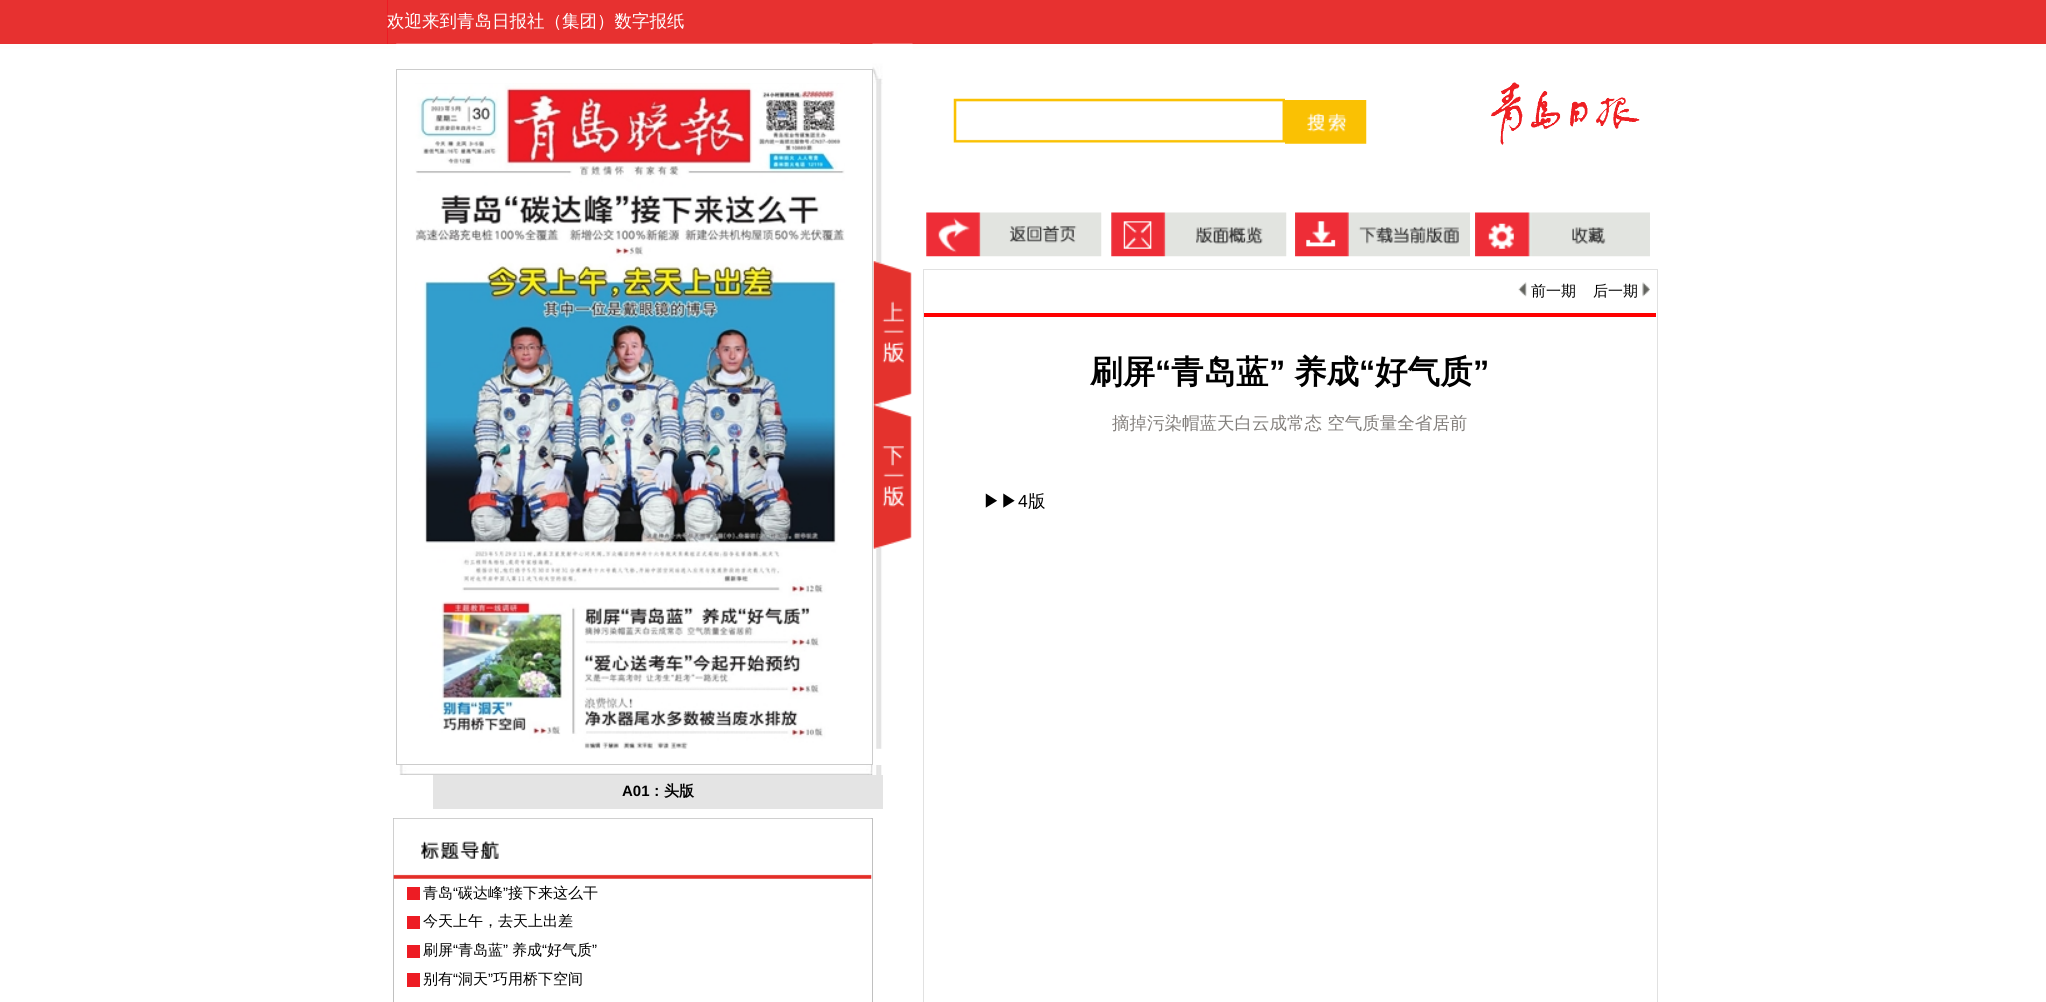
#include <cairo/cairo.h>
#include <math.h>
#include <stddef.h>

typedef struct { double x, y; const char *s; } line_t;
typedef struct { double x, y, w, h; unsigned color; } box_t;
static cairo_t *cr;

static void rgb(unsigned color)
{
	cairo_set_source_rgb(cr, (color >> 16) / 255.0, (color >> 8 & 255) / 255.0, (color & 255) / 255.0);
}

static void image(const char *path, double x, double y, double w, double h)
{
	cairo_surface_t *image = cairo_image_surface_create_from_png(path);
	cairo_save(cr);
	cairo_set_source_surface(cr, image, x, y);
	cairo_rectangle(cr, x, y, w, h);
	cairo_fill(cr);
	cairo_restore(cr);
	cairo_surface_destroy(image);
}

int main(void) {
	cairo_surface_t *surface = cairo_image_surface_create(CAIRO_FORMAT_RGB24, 2046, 1002);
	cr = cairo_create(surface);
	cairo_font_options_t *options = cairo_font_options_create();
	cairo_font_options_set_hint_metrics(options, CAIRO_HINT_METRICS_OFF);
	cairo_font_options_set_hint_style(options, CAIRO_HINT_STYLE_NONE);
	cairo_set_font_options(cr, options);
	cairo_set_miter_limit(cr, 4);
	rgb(0xffffff);
	cairo_paint(cr);
	image("img/1.png", 0, 44, 2046, 958);
	rgb(0xe73130);
	cairo_rectangle(cr, 0, 0, 2046, 44);
	cairo_fill(cr);
	rgb(0xed1b24);
	cairo_rectangle(cr, 387, 0, 1, 44);
	cairo_fill(cr);
	image("img/2.png", 953, 98, 332, 45);
	image("img/3.png", 1285, 100, 82, 44);
	image("img/4.png", 1491, 82, 149, 63);
	image("img/5.png", 926, 212, 176, 45);
	image("img/6.png", 1111, 212, 176, 45);
	image("img/7.png", 1295, 212, 175, 45);
	image("img/8.png", 1475, 212, 175, 45);
	cairo_rectangle(cr, 923.5, 269.5, 734, 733);
	rgb(0xe1e1e1);
	cairo_set_line_width(cr, 1);
	cairo_stroke(cr);
	rgb(0xff0000);
	cairo_rectangle(cr, 924, 313, 732, 4);
	cairo_fill(cr);
	image("img/9.png", 1518, 282, 9, 15);
	image("img/10.png", 1642, 282, 8, 15);
	rgb(0xffffff);
	cairo_rectangle(cr, 396, 44, 477, 5);
	cairo_fill(cr);
	image("img/11.png", 396, 43, 444, 1);
	image("img/12.png", 872, 43, 41, 706);
	image("img/13.png", 873, 261, 39, 144);
	image("img/14.png", 873, 405, 39, 144);
	cairo_rectangle(cr, 396.5, 69.5, 476, 695);
	rgb(0xcccccc);
	cairo_stroke(cr);
	image("img/15.png", 415, 83, 430, 666);
	image("img/16.png", 399, 765, 474, 10);
	image("img/17.png", 872, 765, 10, 10);
	rgb(0xe4e4e4);
	cairo_rectangle(cr, 433, 775, 450, 34);
	cairo_fill(cr);
	cairo_rectangle(cr, 393.5, 818.5, 479, 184);
	rgb(0xc0c0c0);
	cairo_stroke(cr);
	image("img/18.png", 393, 818, 479, 61);
	{
		static const box_t items[] = {
			{407, 887, 13, 13, 0xed1c24},
			{407, 916, 13, 13, 0xed1c24},
			{407, 945, 13, 13, 0xed1c24},
			{407, 973, 13, 14, 0xed1c24},
		};
		for (size_t i = 0; i < sizeof items / sizeof *items; i++) {
			rgb(items[i].color);
			cairo_rectangle(cr, items[i].x, items[i].y, items[i].w, items[i].h);
			cairo_fill(cr);
		}
	}
	cairo_select_font_face(cr, "WenQuanYi Zen Hei Medium", CAIRO_FONT_SLANT_NORMAL, CAIRO_FONT_WEIGHT_NORMAL);
	cairo_set_font_size(cr, 17.5);
	rgb(0xffffff);
	cairo_move_to(cr, 387, 27);
	cairo_show_text(cr, "欢迎来到青岛日报社（集团）数字报纸");
	cairo_set_font_size(cr, 15);
	rgb(0x000000);
	cairo_move_to(cr, 1531, 296);
	cairo_show_text(cr, "前一期");
	cairo_move_to(cr, 1593, 296);
	cairo_show_text(cr, "后一期");
	cairo_select_font_face(cr, "WenQuanYi Zen Hei", CAIRO_FONT_SLANT_NORMAL, CAIRO_FONT_WEIGHT_BOLD);
	cairo_set_font_size(cr, 32.5);
	cairo_move_to(cr, 1090, 383);
	cairo_show_text(cr, "刷屏");
	cairo_select_font_face(cr, "Liberation Sans", CAIRO_FONT_SLANT_NORMAL, CAIRO_FONT_WEIGHT_BOLD);
	cairo_move_to(cr, 1155, 383);
	cairo_show_text(cr, "“");
	cairo_select_font_face(cr, "WenQuanYi Zen Hei", CAIRO_FONT_SLANT_NORMAL, CAIRO_FONT_WEIGHT_BOLD);
	cairo_move_to(cr, 1171, 383);
	cairo_show_text(cr, "青岛蓝");
	cairo_select_font_face(cr, "Liberation Sans", CAIRO_FONT_SLANT_NORMAL, CAIRO_FONT_WEIGHT_BOLD);
	cairo_move_to(cr, 1269, 383);
	cairo_show_text(cr, "”");
	cairo_select_font_face(cr, "WenQuanYi Zen Hei", CAIRO_FONT_SLANT_NORMAL, CAIRO_FONT_WEIGHT_BOLD);
	cairo_move_to(cr, 1294, 383);
	cairo_show_text(cr, "养成");
	cairo_select_font_face(cr, "Liberation Sans", CAIRO_FONT_SLANT_NORMAL, CAIRO_FONT_WEIGHT_BOLD);
	cairo_move_to(cr, 1359, 383);
	cairo_show_text(cr, "“");
	cairo_select_font_face(cr, "WenQuanYi Zen Hei", CAIRO_FONT_SLANT_NORMAL, CAIRO_FONT_WEIGHT_BOLD);
	cairo_move_to(cr, 1375, 383);
	cairo_show_text(cr, "好气质");
	cairo_select_font_face(cr, "Liberation Sans", CAIRO_FONT_SLANT_NORMAL, CAIRO_FONT_WEIGHT_BOLD);
	cairo_move_to(cr, 1473, 383);
	cairo_show_text(cr, "”");
	cairo_select_font_face(cr, "WenQuanYi Zen Hei Medium", CAIRO_FONT_SLANT_NORMAL, CAIRO_FONT_WEIGHT_NORMAL);
	cairo_set_font_size(cr, 17.5);
	rgb(0x827e7b);
	cairo_move_to(cr, 1112, 429);
	cairo_show_text(cr, "摘掉污染帽蓝天白云成常态 空气质量全省居前");
	rgb(0x000000);
	cairo_move_to(cr, 983, 507);
	cairo_show_text(cr, "▶▶");
	cairo_select_font_face(cr, "Liberation Sans", CAIRO_FONT_SLANT_NORMAL, CAIRO_FONT_WEIGHT_NORMAL);
	cairo_move_to(cr, 1018, 507);
	cairo_show_text(cr, "4");
	cairo_select_font_face(cr, "WenQuanYi Zen Hei Medium", CAIRO_FONT_SLANT_NORMAL, CAIRO_FONT_WEIGHT_NORMAL);
	cairo_move_to(cr, 1028, 507);
	cairo_show_text(cr, "版");
	cairo_select_font_face(cr, "Liberation Sans", CAIRO_FONT_SLANT_NORMAL, CAIRO_FONT_WEIGHT_BOLD);
	cairo_set_font_size(cr, 15);
	cairo_move_to(cr, 622, 796);
	cairo_show_text(cr, "A01");
	cairo_select_font_face(cr, "WenQuanYi Zen Hei", CAIRO_FONT_SLANT_NORMAL, CAIRO_FONT_WEIGHT_BOLD);
	cairo_move_to(cr, 649, 796);
	cairo_show_text(cr, "：头版");
	cairo_select_font_face(cr, "WenQuanYi Zen Hei Medium", CAIRO_FONT_SLANT_NORMAL, CAIRO_FONT_WEIGHT_NORMAL);
	cairo_move_to(cr, 423, 898);
	cairo_show_text(cr, "青岛");
	cairo_select_font_face(cr, "Liberation Sans", CAIRO_FONT_SLANT_NORMAL, CAIRO_FONT_WEIGHT_NORMAL);
	cairo_move_to(cr, 453, 898);
	cairo_show_text(cr, "“");
	cairo_select_font_face(cr, "WenQuanYi Zen Hei Medium", CAIRO_FONT_SLANT_NORMAL, CAIRO_FONT_WEIGHT_NORMAL);
	cairo_move_to(cr, 458, 898);
	cairo_show_text(cr, "碳达峰");
	cairo_select_font_face(cr, "Liberation Sans", CAIRO_FONT_SLANT_NORMAL, CAIRO_FONT_WEIGHT_NORMAL);
	cairo_move_to(cr, 503, 898);
	cairo_show_text(cr, "”");
	cairo_select_font_face(cr, "WenQuanYi Zen Hei Medium", CAIRO_FONT_SLANT_NORMAL, CAIRO_FONT_WEIGHT_NORMAL);
	{
		static const line_t items[] = {
			{508, 898, "接下来这么干"},
			{423, 926, "今天上午，去天上出差"},
			{423, 955, "刷屏"},
		};
		for (size_t i = 0; i < sizeof items / sizeof *items; i++) {
			cairo_move_to(cr, items[i].x, items[i].y);
			cairo_show_text(cr, items[i].s);
		}
	}
	cairo_select_font_face(cr, "Liberation Sans", CAIRO_FONT_SLANT_NORMAL, CAIRO_FONT_WEIGHT_NORMAL);
	cairo_move_to(cr, 453, 955);
	cairo_show_text(cr, "“");
	cairo_select_font_face(cr, "WenQuanYi Zen Hei Medium", CAIRO_FONT_SLANT_NORMAL, CAIRO_FONT_WEIGHT_NORMAL);
	cairo_move_to(cr, 458, 955);
	cairo_show_text(cr, "青岛蓝");
	cairo_select_font_face(cr, "Liberation Sans", CAIRO_FONT_SLANT_NORMAL, CAIRO_FONT_WEIGHT_NORMAL);
	cairo_move_to(cr, 503, 955);
	cairo_show_text(cr, "”");
	cairo_select_font_face(cr, "WenQuanYi Zen Hei Medium", CAIRO_FONT_SLANT_NORMAL, CAIRO_FONT_WEIGHT_NORMAL);
	cairo_move_to(cr, 512, 955);
	cairo_show_text(cr, "养成");
	cairo_select_font_face(cr, "Liberation Sans", CAIRO_FONT_SLANT_NORMAL, CAIRO_FONT_WEIGHT_NORMAL);
	cairo_move_to(cr, 542, 955);
	cairo_show_text(cr, "“");
	cairo_select_font_face(cr, "WenQuanYi Zen Hei Medium", CAIRO_FONT_SLANT_NORMAL, CAIRO_FONT_WEIGHT_NORMAL);
	cairo_move_to(cr, 547, 955);
	cairo_show_text(cr, "好气质");
	cairo_select_font_face(cr, "Liberation Sans", CAIRO_FONT_SLANT_NORMAL, CAIRO_FONT_WEIGHT_NORMAL);
	cairo_move_to(cr, 592, 955);
	cairo_show_text(cr, "”");
	cairo_select_font_face(cr, "WenQuanYi Zen Hei Medium", CAIRO_FONT_SLANT_NORMAL, CAIRO_FONT_WEIGHT_NORMAL);
	cairo_move_to(cr, 423, 984);
	cairo_show_text(cr, "别有");
	cairo_select_font_face(cr, "Liberation Sans", CAIRO_FONT_SLANT_NORMAL, CAIRO_FONT_WEIGHT_NORMAL);
	cairo_move_to(cr, 453, 984);
	cairo_show_text(cr, "“");
	cairo_select_font_face(cr, "WenQuanYi Zen Hei Medium", CAIRO_FONT_SLANT_NORMAL, CAIRO_FONT_WEIGHT_NORMAL);
	cairo_move_to(cr, 458, 984);
	cairo_show_text(cr, "洞天");
	cairo_select_font_face(cr, "Liberation Sans", CAIRO_FONT_SLANT_NORMAL, CAIRO_FONT_WEIGHT_NORMAL);
	cairo_move_to(cr, 488, 984);
	cairo_show_text(cr, "”");
	cairo_select_font_face(cr, "WenQuanYi Zen Hei Medium", CAIRO_FONT_SLANT_NORMAL, CAIRO_FONT_WEIGHT_NORMAL);
	cairo_move_to(cr, 493, 984);
	cairo_show_text(cr, "巧用桥下空间");
	cairo_surface_write_to_png(surface, "page.png");
	cairo_font_options_destroy(options);
	cairo_destroy(cr);
	cairo_surface_destroy(surface);
	return 0;
}
